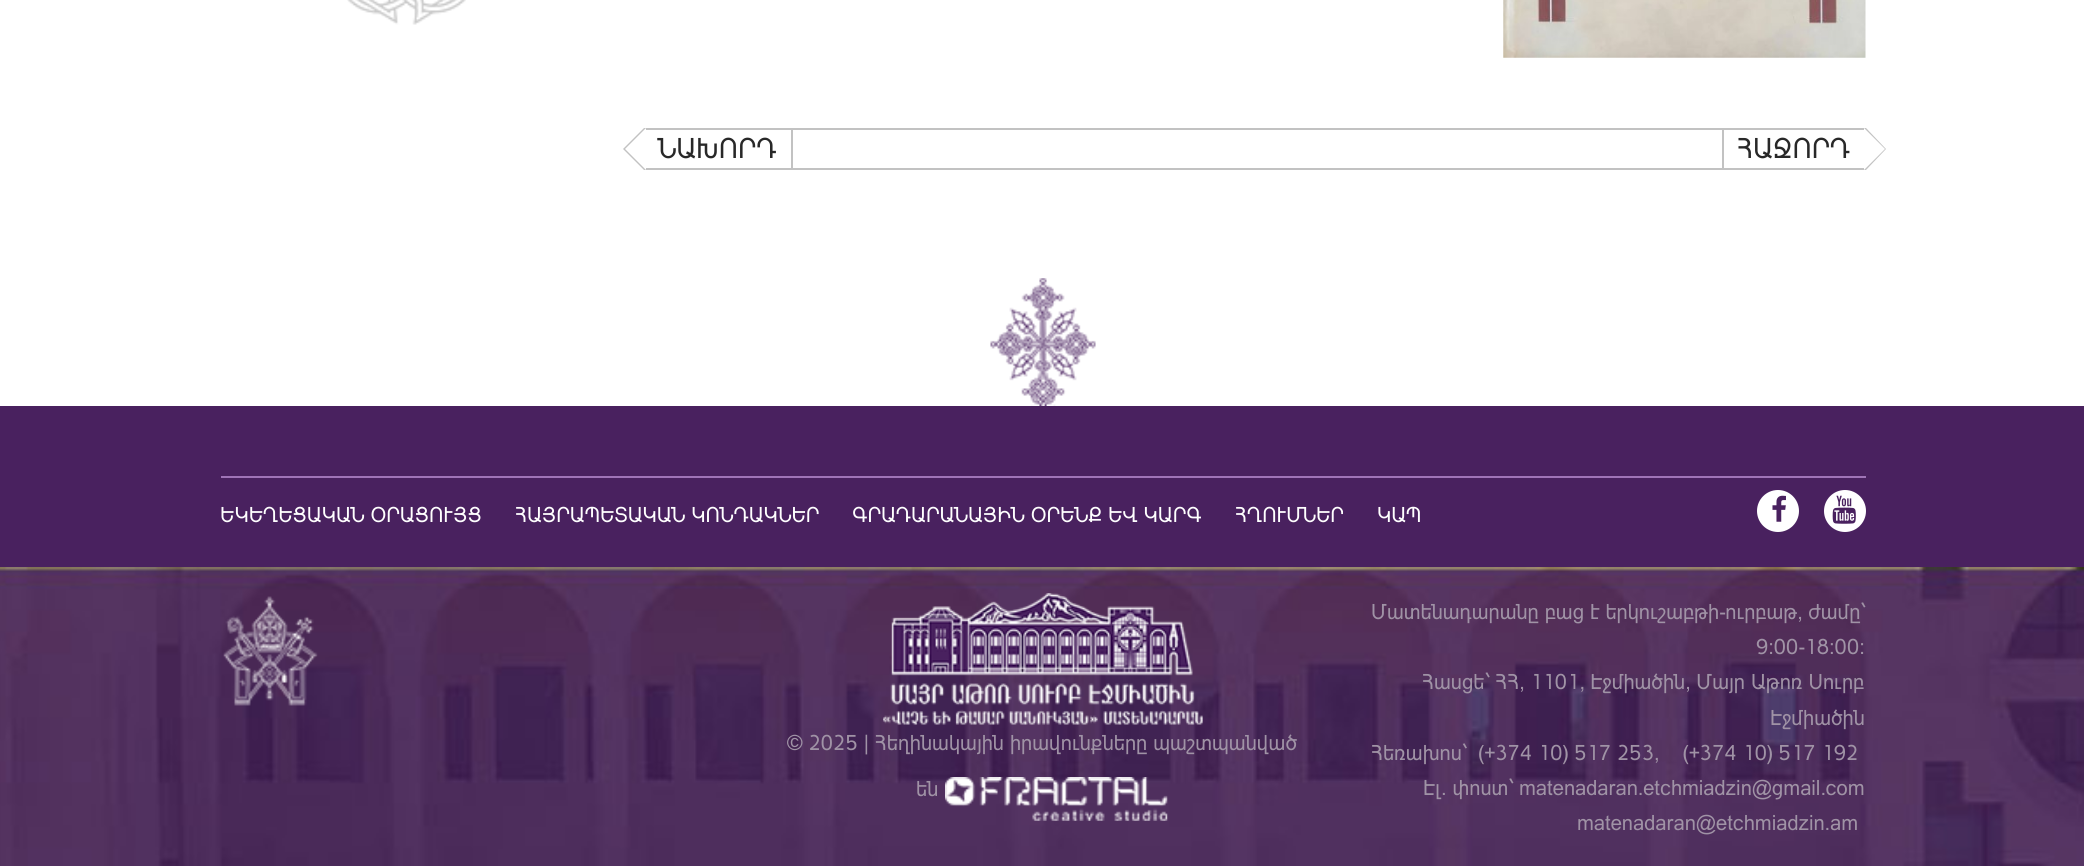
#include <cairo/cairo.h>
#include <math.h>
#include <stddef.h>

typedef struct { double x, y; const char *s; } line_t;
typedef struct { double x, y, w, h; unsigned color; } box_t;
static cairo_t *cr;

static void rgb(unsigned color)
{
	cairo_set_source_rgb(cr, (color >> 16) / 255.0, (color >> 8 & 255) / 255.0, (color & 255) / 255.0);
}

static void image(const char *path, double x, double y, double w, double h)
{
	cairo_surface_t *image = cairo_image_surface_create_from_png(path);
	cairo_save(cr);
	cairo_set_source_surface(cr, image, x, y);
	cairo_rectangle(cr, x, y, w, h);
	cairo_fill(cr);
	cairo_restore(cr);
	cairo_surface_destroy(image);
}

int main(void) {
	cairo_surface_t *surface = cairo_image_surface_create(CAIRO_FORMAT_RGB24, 2084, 866);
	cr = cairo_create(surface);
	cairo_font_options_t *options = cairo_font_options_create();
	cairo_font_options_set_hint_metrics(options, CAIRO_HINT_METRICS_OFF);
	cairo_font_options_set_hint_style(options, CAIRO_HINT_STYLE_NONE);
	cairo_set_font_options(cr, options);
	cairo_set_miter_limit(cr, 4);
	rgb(0xffffff);
	cairo_paint(cr);
	image("img/1.png", 347, 0, 119, 25);
	image("img/2.png", 1503, 0, 363, 58);
	{
		static const box_t items[] = {
			{644, 128, 1222, 2, 0xc2c2c2},
			{644, 168, 1222, 2, 0xc2c2c2},
			{791, 130, 2, 38, 0xc2c2c2},
		};
		for (size_t i = 0; i < sizeof items / sizeof *items; i++) {
			rgb(items[i].color);
			cairo_rectangle(cr, items[i].x, items[i].y, items[i].w, items[i].h);
			cairo_fill(cr);
		}
	}
	cairo_new_path(cr);
	cairo_move_to(cr, 644, 128);
	cairo_line_to(cr, 644, 170);
	cairo_line_to(cr, 623, 149);
	cairo_close_path(cr);
	cairo_fill(cr);
	rgb(0xffffff);
	cairo_new_path(cr);
	cairo_move_to(cr, 646, 128);
	cairo_line_to(cr, 646, 170);
	cairo_line_to(cr, 625, 149);
	cairo_close_path(cr);
	cairo_fill(cr);
	rgb(0xc2c2c2);
	cairo_rectangle(cr, 1722, 130, 2, 38);
	cairo_fill(cr);
	cairo_new_path(cr);
	cairo_move_to(cr, 1866, 170);
	cairo_line_to(cr, 1866, 128);
	cairo_line_to(cr, 1886, 149);
	cairo_close_path(cr);
	cairo_fill(cr);
	rgb(0xffffff);
	cairo_new_path(cr);
	cairo_move_to(cr, 1864, 170);
	cairo_line_to(cr, 1864, 128);
	cairo_line_to(cr, 1885, 149);
	cairo_close_path(cr);
	cairo_fill(cr);
	rgb(0x49215f);
	cairo_rectangle(cr, 0, 406, 2084, 161);
	cairo_fill(cr);
	image("img/3.png", 990, 278, 106, 128);
	rgb(0x9f74b7);
	cairo_rectangle(cr, 221, 476, 1645, 2);
	cairo_fill(cr);
	rgb(0xffffff);
	cairo_arc(cr, 1778, 511, 21, 0, 2 * M_PI);
	cairo_fill(cr);
	image("img/4.png", 1772, 495, 14, 27);
	cairo_arc(cr, 1845, 511, 21, 0, 2 * M_PI);
	cairo_fill(cr);
	image("img/5.png", 1832, 495, 24, 29);
	image("img/6.png", 0, 567, 2084, 299);
	image("img/7.png", 223, 596, 95, 110);
	image("img/8.png", 883, 593, 320, 132);
	image("img/9.png", 945, 777, 223, 44);
	cairo_select_font_face(cr, "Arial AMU", CAIRO_FONT_SLANT_NORMAL, CAIRO_FONT_WEIGHT_NORMAL);
	cairo_set_font_size(cr, 28);
	rgb(0x282828);
	cairo_move_to(cr, 658, 158);
	cairo_show_text(cr, "ՆԱԽՈՐԴ");
	cairo_move_to(cr, 1737, 158);
	cairo_show_text(cr, "ՀԱՋՈՐԴ");
	cairo_set_font_size(cr, 21);
	rgb(0xffffff);
	{
		static const line_t items[] = {
			{220, 522, "ԵԿԵՂԵՑԱԿԱՆ ՕՐԱՑՈՒՅՑ"},
			{515, 522, "ՀԱՅՐԱՊԵՏԱԿԱՆ ԿՈՆԴԱԿՆԵՐ"},
			{852, 522, "ԳՐԱԴԱՐԱՆԱՅԻՆ ՕՐԵՆՔ ԵՎ ԿԱՐԳ"},
			{1235, 522, "ՀՂՈՒՄՆԵՐ"},
			{1377, 522, "ԿԱՊ"},
		};
		for (size_t i = 0; i < sizeof items / sizeof *items; i++) {
			cairo_move_to(cr, items[i].x, items[i].y);
			cairo_show_text(cr, items[i].s);
		}
	}
	rgb(0xa093a6);
	{
		static const line_t items[] = {
			{787, 750, "© 2025 | Հեղինակային իրավունքները պաշտպանված"},
			{916, 796, "են"},
			{1371, 619, "Մատենադարանը բաց է երկուշաբթի-ուրբաթ, ժամը`"},
			{1756, 654, "9:00-18:00:"},
			{1422, 689, "Հասցե` ՀՀ, 1101, Էջմիածին, Մայր Աթոռ Սուրբ"},
			{1770, 725, "Էջմիածին"},
			{1371, 760, "Հեռախոս`  (+374 10) 517 253,    (+374 10) 517 192"},
			{1423, 795, "Էլ. փոստ` matenadaran.etchmiadzin@gmail.com"},
			{1577, 830, "matenadaran@etchmiadzin.am"},
		};
		for (size_t i = 0; i < sizeof items / sizeof *items; i++) {
			cairo_move_to(cr, items[i].x, items[i].y);
			cairo_show_text(cr, items[i].s);
		}
	}
	cairo_surface_write_to_png(surface, "page.png");
	cairo_font_options_destroy(options);
	cairo_destroy(cr);
	cairo_surface_destroy(surface);
	return 0;
}
